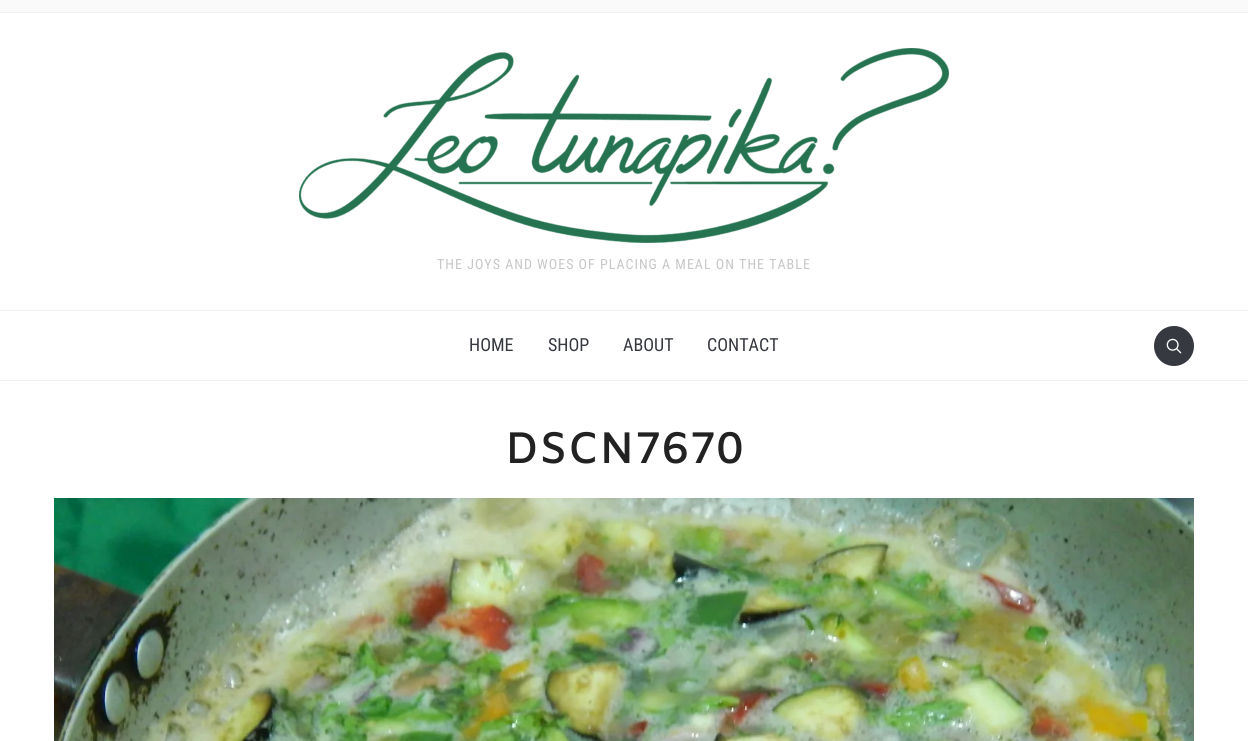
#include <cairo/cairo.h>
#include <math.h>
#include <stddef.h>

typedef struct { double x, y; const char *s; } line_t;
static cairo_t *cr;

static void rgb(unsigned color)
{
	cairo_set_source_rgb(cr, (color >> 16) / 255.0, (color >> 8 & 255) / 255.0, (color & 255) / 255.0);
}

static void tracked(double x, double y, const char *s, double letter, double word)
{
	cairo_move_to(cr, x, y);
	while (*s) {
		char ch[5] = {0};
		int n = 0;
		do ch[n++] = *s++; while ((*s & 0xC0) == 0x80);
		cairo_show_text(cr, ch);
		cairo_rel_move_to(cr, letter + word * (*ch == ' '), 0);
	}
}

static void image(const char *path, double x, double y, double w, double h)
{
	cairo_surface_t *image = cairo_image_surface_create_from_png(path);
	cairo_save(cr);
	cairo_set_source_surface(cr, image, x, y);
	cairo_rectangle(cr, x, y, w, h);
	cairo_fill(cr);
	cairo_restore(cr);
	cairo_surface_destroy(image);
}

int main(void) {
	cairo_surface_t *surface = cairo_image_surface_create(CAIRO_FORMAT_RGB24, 1248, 741);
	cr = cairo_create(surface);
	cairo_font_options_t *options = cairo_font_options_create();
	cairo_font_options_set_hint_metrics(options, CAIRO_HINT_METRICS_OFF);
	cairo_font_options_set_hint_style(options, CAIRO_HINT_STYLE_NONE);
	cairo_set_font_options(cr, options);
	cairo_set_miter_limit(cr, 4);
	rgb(0xffffff);
	cairo_paint(cr);
	rgb(0xfafafa);
	cairo_rectangle(cr, 0, 0, 1248, 12);
	cairo_fill(cr);
	rgb(0xf0f0f0);
	cairo_rectangle(cr, 0, 12, 1248, 1);
	cairo_fill(cr);
	image("img/1.png", 299, 48, 650, 195);
	cairo_rectangle(cr, 0, 310, 1248, 1);
	cairo_fill(cr);
	cairo_rectangle(cr, 0, 380, 1248, 1);
	cairo_fill(cr);
	rgb(0x363940);
	cairo_arc(cr, 1174, 346, 20, 0, 2 * M_PI);
	cairo_fill(cr);
	image("img/2.png", 1166, 338, 16, 16);
	image("img/3.png", 54, 498, 1140, 243);
	cairo_select_font_face(cr, "Roboto Condensed", CAIRO_FONT_SLANT_NORMAL, CAIRO_FONT_WEIGHT_NORMAL);
	cairo_set_font_size(cr, 14);
	rgb(0xc7c7c7);
	tracked(437, 269, "THE JOYS AND WOES OF PLACING A MEAL ON THE TABLE", 1, 0);
	cairo_set_font_size(cr, 18);
	rgb(0x363940);
	{
		static const line_t items[] = {
			{469, 351, "HOME"},
			{548, 351, "SHOP"},
			{623, 351, "ABOUT"},
			{707, 351, "CONTACT"},
		};
		for (size_t i = 0; i < sizeof items / sizeof *items; i++) {
			cairo_move_to(cr, items[i].x, items[i].y);
			cairo_show_text(cr, items[i].s);
		}
	}
	cairo_select_font_face(cr, "Amiko SemiBold", CAIRO_FONT_SLANT_NORMAL, CAIRO_FONT_WEIGHT_NORMAL);
	cairo_set_font_size(cr, 44);
	rgb(0x222222);
	cairo_move_to(cr, 505, 463);
	cairo_show_text(cr, "DSCN7670");
	cairo_surface_write_to_png(surface, "page.png");
	cairo_font_options_destroy(options);
	cairo_destroy(cr);
	cairo_surface_destroy(surface);
	return 0;
}
